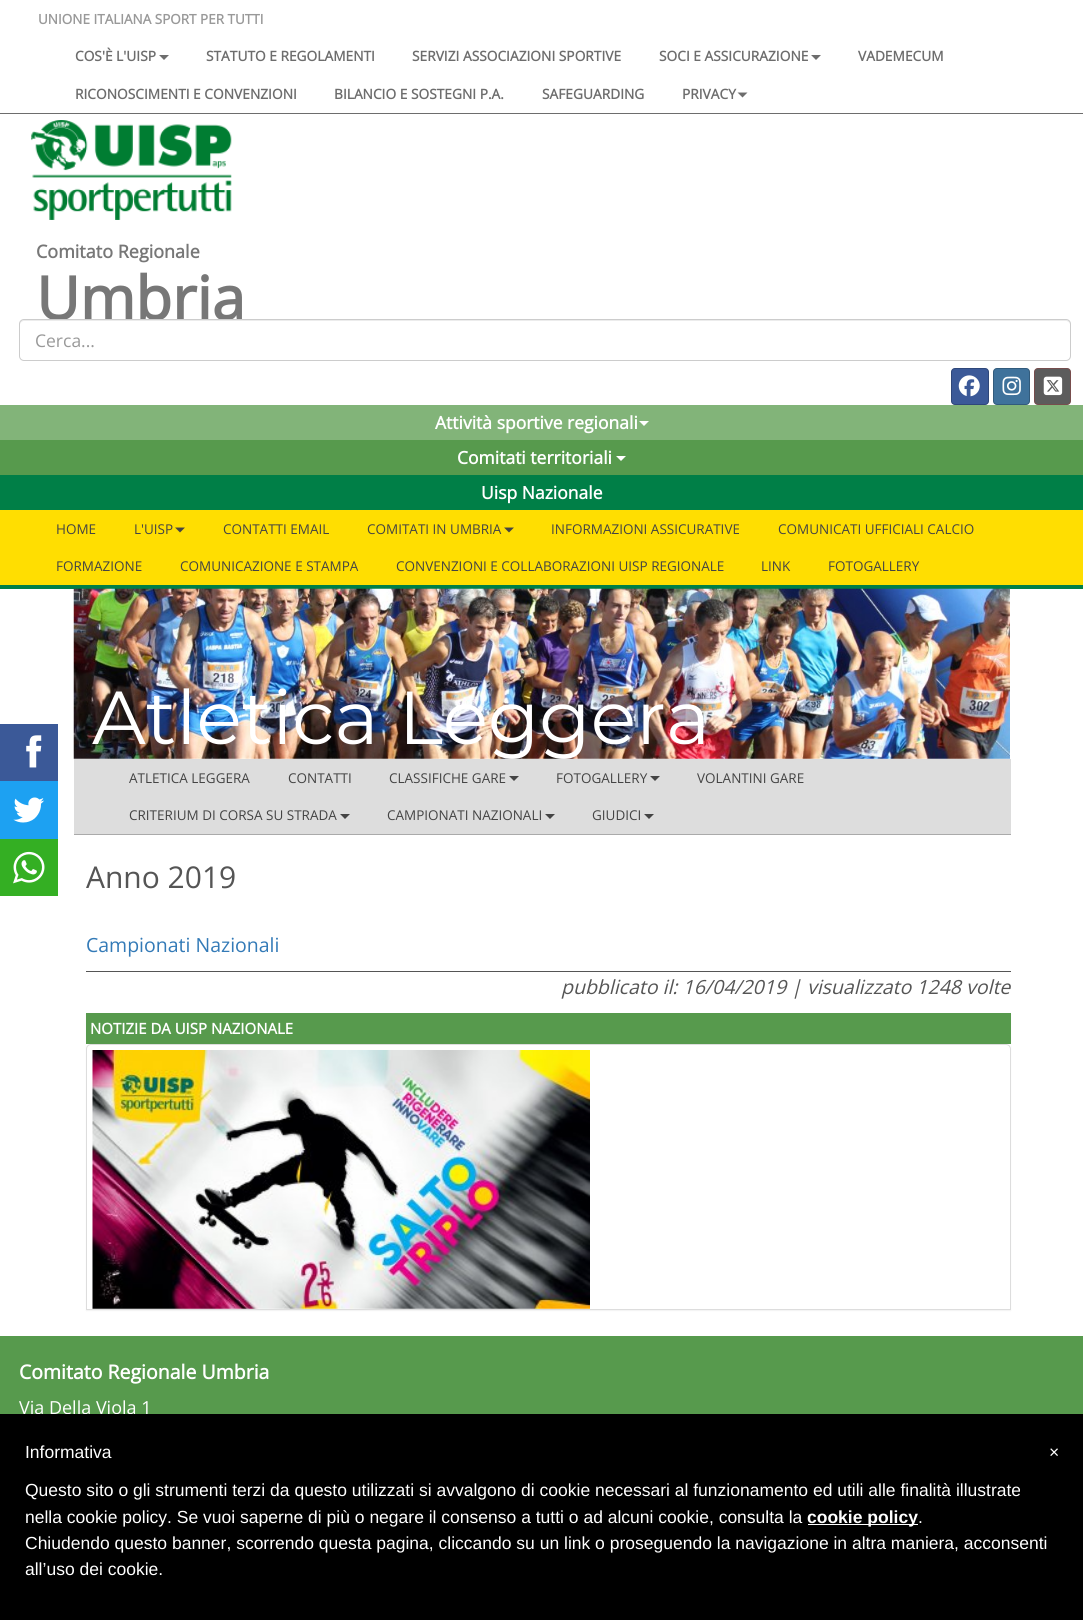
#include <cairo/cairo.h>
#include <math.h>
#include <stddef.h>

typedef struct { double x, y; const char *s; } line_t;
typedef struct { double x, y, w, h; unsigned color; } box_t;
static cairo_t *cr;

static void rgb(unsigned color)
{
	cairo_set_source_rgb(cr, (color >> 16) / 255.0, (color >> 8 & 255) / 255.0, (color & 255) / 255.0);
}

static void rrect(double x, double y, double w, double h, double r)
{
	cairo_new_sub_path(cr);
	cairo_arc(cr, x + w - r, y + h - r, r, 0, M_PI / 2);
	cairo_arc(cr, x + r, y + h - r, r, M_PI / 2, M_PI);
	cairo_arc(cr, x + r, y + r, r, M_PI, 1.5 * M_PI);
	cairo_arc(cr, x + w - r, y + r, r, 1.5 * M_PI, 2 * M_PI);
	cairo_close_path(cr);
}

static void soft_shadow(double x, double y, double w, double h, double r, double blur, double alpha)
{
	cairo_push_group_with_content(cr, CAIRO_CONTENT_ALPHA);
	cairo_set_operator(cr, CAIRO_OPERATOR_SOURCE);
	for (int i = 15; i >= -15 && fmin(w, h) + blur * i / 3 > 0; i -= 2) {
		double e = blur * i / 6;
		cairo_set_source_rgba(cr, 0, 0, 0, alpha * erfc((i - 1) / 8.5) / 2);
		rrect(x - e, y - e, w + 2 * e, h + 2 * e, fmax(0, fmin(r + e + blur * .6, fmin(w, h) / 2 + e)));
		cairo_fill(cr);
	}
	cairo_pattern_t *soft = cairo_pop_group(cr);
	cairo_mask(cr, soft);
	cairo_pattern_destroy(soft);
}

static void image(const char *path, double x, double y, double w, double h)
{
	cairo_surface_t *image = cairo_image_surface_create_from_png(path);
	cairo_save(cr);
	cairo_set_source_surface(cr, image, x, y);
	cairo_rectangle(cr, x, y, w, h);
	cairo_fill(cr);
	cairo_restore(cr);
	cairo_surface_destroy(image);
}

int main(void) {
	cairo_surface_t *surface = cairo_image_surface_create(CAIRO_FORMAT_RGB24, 1083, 1620);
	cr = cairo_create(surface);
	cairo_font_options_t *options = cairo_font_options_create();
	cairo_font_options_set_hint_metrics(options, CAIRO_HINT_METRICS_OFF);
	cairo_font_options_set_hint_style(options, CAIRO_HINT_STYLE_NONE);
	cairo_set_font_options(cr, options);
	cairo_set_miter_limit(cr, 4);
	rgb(0xffffff);
	cairo_paint(cr);
	rgb(0x6d6d6d);
	cairo_rectangle(cr, 0, 113, 1083, 1);
	cairo_fill(cr);
	cairo_new_path(cr);
	cairo_move_to(cr, 159, 55);
	cairo_line_to(cr, 169, 55);
	cairo_line_to(cr, 164, 60);
	cairo_close_path(cr);
	cairo_fill(cr);
	cairo_new_path(cr);
	cairo_move_to(cr, 811, 55);
	cairo_line_to(cr, 821, 55);
	cairo_line_to(cr, 816, 60);
	cairo_close_path(cr);
	cairo_fill(cr);
	cairo_new_path(cr);
	cairo_move_to(cr, 737.5, 92.5);
	cairo_line_to(cr, 747.5, 92.5);
	cairo_line_to(cr, 742.5, 97.5);
	cairo_close_path(cr);
	cairo_fill(cr);
	image("img/1.png", 31, 120, 201, 100);
	rgb(0x3b5998);
	rrect(951, 368, 38, 37, 4);
	cairo_fill(cr);
	rrect(951.5, 368.5, 37, 36, 3.5);
	cairo_set_source_rgba(cr, 0, 0, 0, 0.2);
	cairo_set_line_width(cr, 1);
	cairo_stroke(cr);
	image("img/2.png", 958, 375, 22, 22);
	rgb(0x3f729b);
	rrect(993, 368, 37, 37, 4);
	cairo_fill(cr);
	rrect(993.5, 368.5, 36, 36, 3.5);
	cairo_set_source_rgba(cr, 0, 0, 0, 0.2);
	cairo_stroke(cr);
	image("img/3.png", 1002, 376, 19, 20);
	rgb(0x5c5c5c);
	rrect(1034, 368, 37, 37, 4);
	cairo_fill(cr);
	rrect(1034.5, 368.5, 36, 36, 3.5);
	cairo_set_source_rgba(cr, 0.894, 0.059, 0.059, 0.2);
	cairo_stroke(cr);
	image("img/4.png", 1043, 376, 20, 20);
	rgb(0x82b479);
	cairo_rectangle(cr, 0, 405, 1083, 35);
	cairo_fill(cr);
	rgb(0xffffff);
	cairo_new_path(cr);
	cairo_move_to(cr, 639, 421);
	cairo_line_to(cr, 649, 421);
	cairo_line_to(cr, 644, 426);
	cairo_close_path(cr);
	cairo_fill(cr);
	rgb(0x579a4d);
	cairo_rectangle(cr, 0, 440, 1083, 35);
	cairo_fill(cr);
	rgb(0xffffff);
	cairo_new_path(cr);
	cairo_move_to(cr, 616, 456);
	cairo_line_to(cr, 626, 456);
	cairo_line_to(cr, 621, 461);
	cairo_close_path(cr);
	cairo_fill(cr);
	{
		static const box_t items[] = {
			{0, 475, 1083, 35, 0x007f47},
			{0, 510, 1083, 75, 0xffde01},
			{0, 585, 1083, 4, 0x007f47},
		};
		for (size_t i = 0; i < sizeof items / sizeof *items; i++) {
			rgb(items[i].color);
			cairo_rectangle(cr, items[i].x, items[i].y, items[i].w, items[i].h);
			cairo_fill(cr);
		}
	}
	rgb(0x444444);
	cairo_new_path(cr);
	cairo_move_to(cr, 175, 527.5);
	cairo_line_to(cr, 185, 527.5);
	cairo_line_to(cr, 180, 532.5);
	cairo_close_path(cr);
	cairo_fill(cr);
	cairo_new_path(cr);
	cairo_move_to(cr, 504, 527.5);
	cairo_line_to(cr, 514, 527.5);
	cairo_line_to(cr, 509, 532.5);
	cairo_close_path(cr);
	cairo_fill(cr);
	image("img/5.png", 73, 588, 937, 171);
	rgb(0xdddddd);
	cairo_rectangle(cr, 74, 759, 937, 75);
	cairo_fill(cr);
	rgb(0xaaaaaa);
	cairo_rectangle(cr, 74, 834, 937, 1);
	cairo_fill(cr);
	rgb(0x444444);
	cairo_new_path(cr);
	cairo_move_to(cr, 509, 776);
	cairo_line_to(cr, 519, 776);
	cairo_line_to(cr, 514, 781);
	cairo_close_path(cr);
	cairo_fill(cr);
	cairo_new_path(cr);
	cairo_move_to(cr, 650, 776);
	cairo_line_to(cr, 660, 776);
	cairo_line_to(cr, 655, 781);
	cairo_close_path(cr);
	cairo_fill(cr);
	cairo_new_path(cr);
	cairo_move_to(cr, 340, 814);
	cairo_line_to(cr, 350, 814);
	cairo_line_to(cr, 345, 819);
	cairo_close_path(cr);
	cairo_fill(cr);
	cairo_new_path(cr);
	cairo_move_to(cr, 545, 814);
	cairo_line_to(cr, 555, 814);
	cairo_line_to(cr, 550, 819);
	cairo_close_path(cr);
	cairo_fill(cr);
	cairo_new_path(cr);
	cairo_move_to(cr, 644, 814);
	cairo_line_to(cr, 654, 814);
	cairo_line_to(cr, 649, 819);
	cairo_close_path(cr);
	cairo_fill(cr);
	rgb(0x3b5998);
	cairo_rectangle(cr, 0, 724, 58, 57);
	cairo_fill(cr);
	image("img/6.png", 26, 735, 16, 33);
	rgb(0x1da1f2);
	cairo_rectangle(cr, 0, 781, 58, 58);
	cairo_fill(cr);
	image("img/7.png", 13, 797, 31, 26);
	rgb(0x34af23);
	cairo_rectangle(cr, 0, 839, 58, 57);
	cairo_fill(cr);
	image("img/8.png", 13, 851, 32, 33);
	rgb(0x555555);
	cairo_rectangle(cr, 86, 971, 925, 1);
	cairo_fill(cr);
	rgb(0x000000);
	soft_shadow(86, 1014, 925, 297, 0, 0.5, 0.05);
	{
		static const box_t items[] = {
			{86, 1044, 925, 265, 0xffffff},
			{86, 1309, 925, 1, 0xdddddd},
			{86, 1013, 925, 31, 0x579a4d},
			{0, 1336, 1083, 78, 0x579a4d},
		};
		for (size_t i = 0; i < sizeof items / sizeof *items; i++) {
			rgb(items[i].color);
			cairo_rectangle(cr, items[i].x, items[i].y, items[i].w, items[i].h);
			cairo_fill(cr);
		}
	}
	cairo_save(cr);
	cairo_rectangle(cr, 86, 1044, 925, 265);
	cairo_clip(cr);
	cairo_new_path(cr);
	cairo_move_to(cr, 91, 1044.5);
	cairo_line_to(cr, 1006, 1044.5);
	cairo_curve_to(cr, 1008.5, 1044.5, 1010.5, 1046.5, 1010.5, 1049);
	cairo_line_to(cr, 1010.5, 1389.5);
	cairo_line_to(cr, 86.5, 1389.5);
	cairo_line_to(cr, 86.5, 1049);
	cairo_curve_to(cr, 86.5, 1046.5, 88.5, 1044.5, 91, 1044.5);
	cairo_close_path(cr);
	rgb(0xdddddd);
	cairo_stroke(cr);
	cairo_restore(cr);
	image("img/9.png", 92, 1050, 498, 259);
	cairo_select_font_face(cr, "Open Sans", CAIRO_FONT_SLANT_NORMAL, CAIRO_FONT_WEIGHT_BOLD);
	cairo_set_font_size(cr, 13.5);
	rgb(0x999999);
	cairo_move_to(cr, 38, 24);
	cairo_show_text(cr, "UNIONE ITALIANA SPORT PER TUTTI");
	cairo_set_font_size(cr, 13.75);
	rgb(0x6d6d6d);
	{
		static const line_t items[] = {
			{75, 61, "COS'È L'UISP"},
			{206, 61, "STATUTO E REGOLAMENTI"},
			{412, 61, "SERVIZI ASSOCIAZIONI SPORTIVE"},
			{659, 61, "SOCI E ASSICURAZIONE"},
			{858, 61, "VADEMECUM"},
			{75, 99, "RICONOSCIMENTI E CONVENZIONI"},
			{334, 99, "BILANCIO E SOSTEGNI P.A."},
			{542, 99, "SAFEGUARDING"},
			{682, 99, "PRIVACY"},
		};
		for (size_t i = 0; i < sizeof items / sizeof *items; i++) {
			cairo_move_to(cr, items[i].x, items[i].y);
			cairo_show_text(cr, items[i].s);
		}
	}
	cairo_set_font_size(cr, 18);
	rgb(0x777777);
	cairo_move_to(cr, 36, 258);
	cairo_show_text(cr, "Comitato Regionale");
	cairo_set_font_size(cr, 60);
	cairo_move_to(cr, 36, 320);
	cairo_show_text(cr, "Umbria");
	rgb(0xffffff);
	rrect(19, 319, 1052, 42, 5);
	cairo_fill(cr);
	rgb(0xececec);
	cairo_new_path(cr);
	cairo_move_to(cr, 24, 321);
	cairo_line_to(cr, 1066, 321);
	cairo_curve_to(cr, 1068, 321, 1070, 323, 1070, 325);
	cairo_curve_to(cr, 1070, 322, 1069, 320, 1066, 320);
	cairo_line_to(cr, 24, 320);
	cairo_curve_to(cr, 21, 320, 20, 322, 20, 325);
	cairo_curve_to(cr, 20, 323, 22, 321, 24, 321);
	cairo_close_path(cr);
	cairo_fill(cr);
	rrect(19.5, 319.5, 1051, 41, 4.5);
	rgb(0xcccccc);
	cairo_stroke(cr);
	cairo_select_font_face(cr, "Open Sans", CAIRO_FONT_SLANT_NORMAL, CAIRO_FONT_WEIGHT_NORMAL);
	cairo_set_font_size(cr, 17.5);
	rgb(0x999999);
	cairo_move_to(cr, 35, 347);
	cairo_show_text(cr, "Cerca...");
	cairo_select_font_face(cr, "Open Sans", CAIRO_FONT_SLANT_NORMAL, CAIRO_FONT_WEIGHT_BOLD);
	rgb(0xffffff);
	{
		static const line_t items[] = {
			{435, 429, "Attività sportive regionali"},
			{457, 464, "Comitati territoriali"},
			{481, 499, "Uisp Nazionale"},
		};
		for (size_t i = 0; i < sizeof items / sizeof *items; i++) {
			cairo_move_to(cr, items[i].x, items[i].y);
			cairo_show_text(cr, items[i].s);
		}
	}
	cairo_select_font_face(cr, "Open Sans", CAIRO_FONT_SLANT_NORMAL, CAIRO_FONT_WEIGHT_NORMAL);
	cairo_set_font_size(cr, 13.5);
	rgb(0x444444);
	{
		static const line_t items[] = {
			{56, 534, "HOME"},
			{134, 534, "L'UISP"},
			{223, 534, "CONTATTI EMAIL"},
			{367, 534, "COMITATI IN UMBRIA"},
			{551, 534, "INFORMAZIONI ASSICURATIVE"},
			{778, 534, "COMUNICATI UFFICIALI CALCIO"},
			{56, 571, "FORMAZIONE"},
			{180, 571, "COMUNICAZIONE E STAMPA"},
			{396, 571, "CONVENZIONI E COLLABORAZIONI UISP REGIONALE"},
			{761, 571, "LINK"},
			{828, 571, "FOTOGALLERY"},
		};
		for (size_t i = 0; i < sizeof items / sizeof *items; i++) {
			cairo_move_to(cr, items[i].x, items[i].y);
			cairo_show_text(cr, items[i].s);
		}
	}
	cairo_select_font_face(cr, "Montserrat", CAIRO_FONT_SLANT_NORMAL, CAIRO_FONT_WEIGHT_NORMAL);
	cairo_set_font_size(cr, 75);
	rgb(0xffffff);
	cairo_move_to(cr, 92, 744);
	cairo_show_text(cr, "Atletica Leggera");
	cairo_select_font_face(cr, "Open Sans", CAIRO_FONT_SLANT_NORMAL, CAIRO_FONT_WEIGHT_NORMAL);
	cairo_set_font_size(cr, 13.5);
	rgb(0x444444);
	{
		static const line_t items[] = {
			{129, 783, "ATLETICA LEGGERA"},
			{288, 783, "CONTATTI"},
			{389, 783, "CLASSIFICHE GARE"},
			{556, 783, "FOTOGALLERY"},
			{697, 783, "VOLANTINI GARE"},
			{129, 820, "CRITERIUM DI CORSA SU STRADA"},
			{387, 820, "CAMPIONATI NAZIONALI"},
			{592, 820, "GIUDICI"},
		};
		for (size_t i = 0; i < sizeof items / sizeof *items; i++) {
			cairo_move_to(cr, items[i].x, items[i].y);
			cairo_show_text(cr, items[i].s);
		}
	}
	cairo_set_font_size(cr, 30);
	rgb(0x555555);
	cairo_move_to(cr, 86, 888);
	cairo_show_text(cr, "Anno 2019");
	cairo_set_font_size(cr, 19.5);
	rgb(0x337ab7);
	cairo_move_to(cr, 86, 952);
	cairo_show_text(cr, "Campionati Nazionali");
	cairo_select_font_face(cr, "Open Sans", CAIRO_FONT_SLANT_ITALIC, CAIRO_FONT_WEIGHT_NORMAL);
	rgb(0x555555);
	cairo_move_to(cr, 561, 994);
	cairo_show_text(cr, "pubblicato il: 16/04/2019 | visualizzato 1248 volte");
	cairo_select_font_face(cr, "Open Sans", CAIRO_FONT_SLANT_NORMAL, CAIRO_FONT_WEIGHT_BOLD);
	cairo_set_font_size(cr, 15);
	rgb(0xffffff);
	cairo_move_to(cr, 90, 1034);
	cairo_show_text(cr, "NOTIZIE DA UISP NAZIONALE");
	cairo_set_font_size(cr, 19.5);
	cairo_move_to(cr, 19, 1379);
	cairo_show_text(cr, "Comitato Regionale Umbria");
	cairo_select_font_face(cr, "Open Sans", CAIRO_FONT_SLANT_NORMAL, CAIRO_FONT_WEIGHT_NORMAL);
	cairo_set_font_size(cr, 18);
	cairo_move_to(cr, 19, 1414);
	cairo_show_text(cr, "Via Della Viola 1");
	rgb(0x000000);
	cairo_rectangle(cr, 0, 1414, 1083, 206);
	cairo_fill(cr);
	cairo_select_font_face(cr, "Liberation Sans", CAIRO_FONT_SLANT_NORMAL, CAIRO_FONT_WEIGHT_NORMAL);
	cairo_set_font_size(cr, 17.5);
	rgb(0xffffff);
	{
		static const line_t items[] = {
			{25, 1458, "Informativa"},
			{25, 1496, "Questo sito o gli strumenti terzi da questo utilizzati si avvalgono di cookie necessari al funzionamento ed utili alle finalità illustrate"},
			{25, 1523, "nella cookie policy. Se vuoi saperne di più o negare il consenso a tutti o ad alcuni cookie, consulta la"},
		};
		for (size_t i = 0; i < sizeof items / sizeof *items; i++) {
			cairo_move_to(cr, items[i].x, items[i].y);
			cairo_show_text(cr, items[i].s);
		}
	}
	cairo_rectangle(cr, 808, 1524, 110, 1);
	cairo_fill(cr);
	cairo_select_font_face(cr, "Liberation Sans", CAIRO_FONT_SLANT_NORMAL, CAIRO_FONT_WEIGHT_BOLD);
	cairo_move_to(cr, 807, 1523);
	cairo_show_text(cr, "cookie policy");
	cairo_select_font_face(cr, "Liberation Sans", CAIRO_FONT_SLANT_NORMAL, CAIRO_FONT_WEIGHT_NORMAL);
	{
		static const line_t items[] = {
			{918, 1523, "."},
			{25, 1549, "Chiudendo questo banner, scorrendo questa pagina, cliccando su un link o proseguendo la navigazione in altra maniera, acconsenti"},
			{25, 1575, "all’uso dei cookie."},
			{1049, 1458, "×"},
		};
		for (size_t i = 0; i < sizeof items / sizeof *items; i++) {
			cairo_move_to(cr, items[i].x, items[i].y);
			cairo_show_text(cr, items[i].s);
		}
	}
	cairo_surface_write_to_png(surface, "page.png");
	cairo_font_options_destroy(options);
	cairo_destroy(cr);
	cairo_surface_destroy(surface);
	return 0;
}
